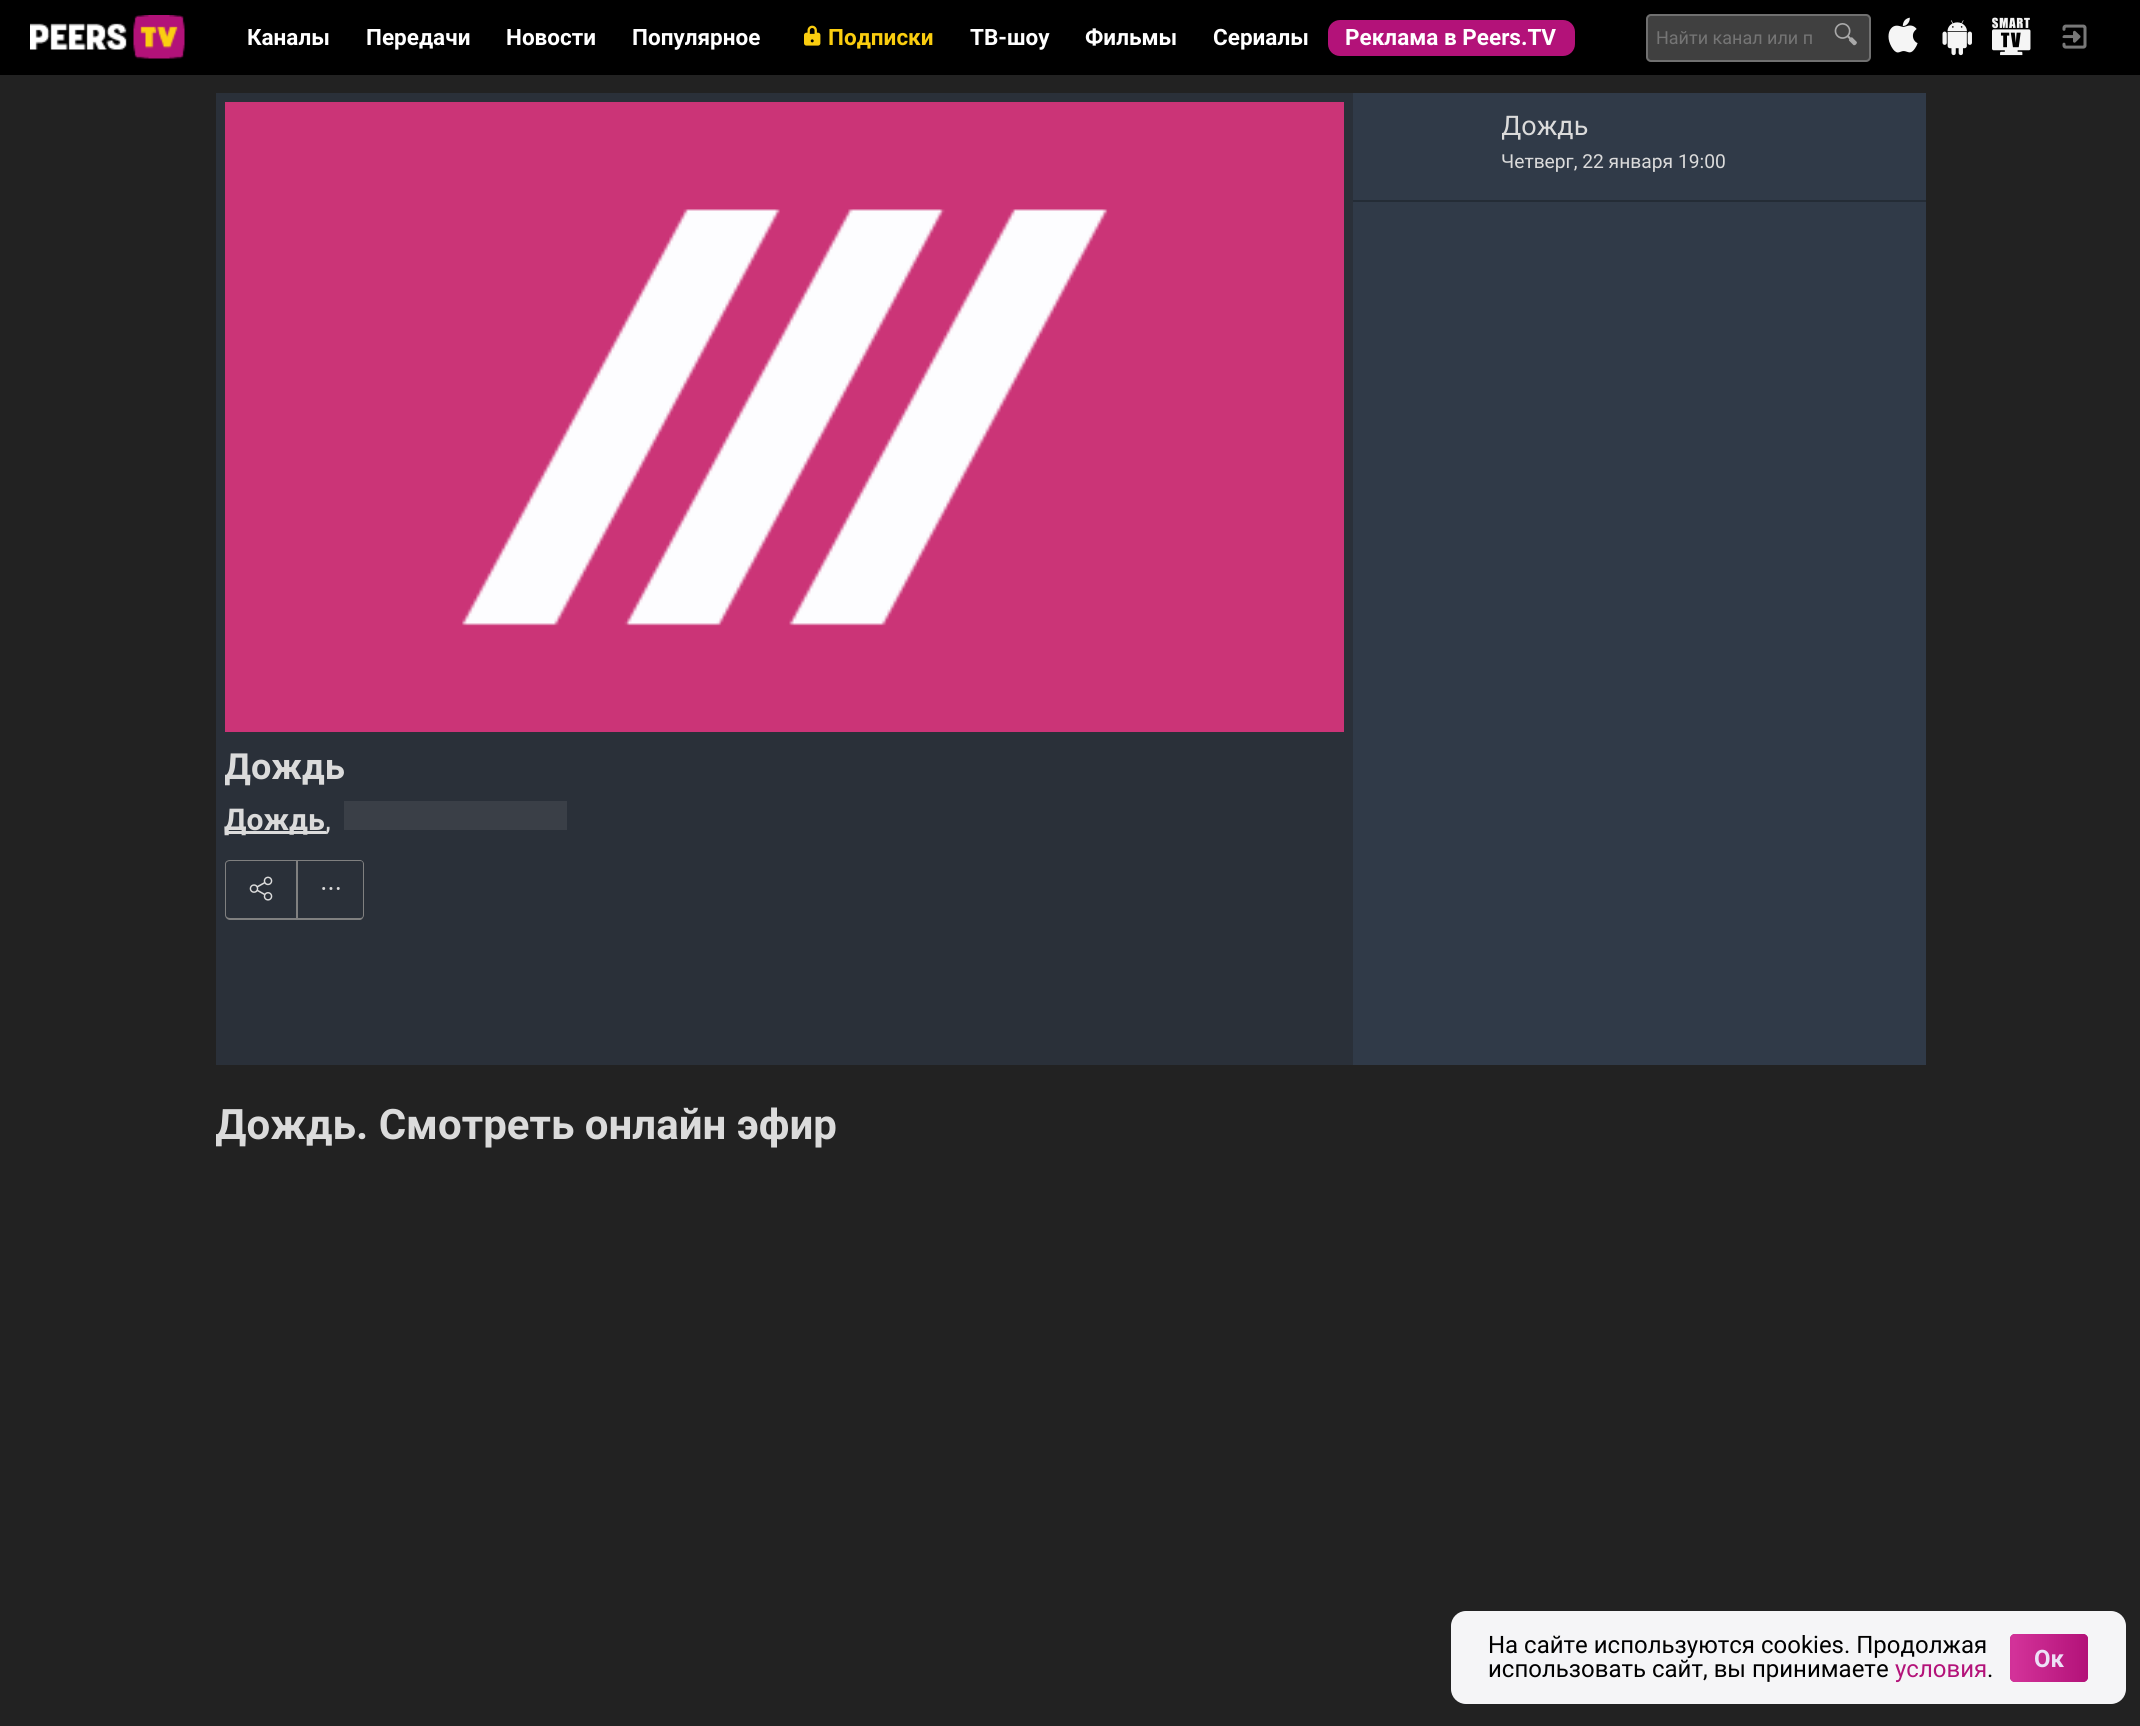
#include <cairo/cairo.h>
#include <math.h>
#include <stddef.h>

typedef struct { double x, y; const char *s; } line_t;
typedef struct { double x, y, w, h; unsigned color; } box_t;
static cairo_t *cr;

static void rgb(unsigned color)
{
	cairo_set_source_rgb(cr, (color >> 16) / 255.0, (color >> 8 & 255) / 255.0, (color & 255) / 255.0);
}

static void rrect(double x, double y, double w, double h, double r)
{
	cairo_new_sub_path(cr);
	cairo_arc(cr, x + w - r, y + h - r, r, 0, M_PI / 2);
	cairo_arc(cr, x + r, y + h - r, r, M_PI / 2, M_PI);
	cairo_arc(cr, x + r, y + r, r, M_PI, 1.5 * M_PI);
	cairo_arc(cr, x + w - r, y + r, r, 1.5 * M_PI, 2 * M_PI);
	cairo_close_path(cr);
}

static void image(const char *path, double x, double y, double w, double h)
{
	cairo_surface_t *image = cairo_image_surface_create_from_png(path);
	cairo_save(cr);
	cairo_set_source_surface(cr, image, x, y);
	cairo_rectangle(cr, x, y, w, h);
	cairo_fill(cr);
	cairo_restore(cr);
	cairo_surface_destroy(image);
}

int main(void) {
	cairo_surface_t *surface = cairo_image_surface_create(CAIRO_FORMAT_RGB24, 2140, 1726);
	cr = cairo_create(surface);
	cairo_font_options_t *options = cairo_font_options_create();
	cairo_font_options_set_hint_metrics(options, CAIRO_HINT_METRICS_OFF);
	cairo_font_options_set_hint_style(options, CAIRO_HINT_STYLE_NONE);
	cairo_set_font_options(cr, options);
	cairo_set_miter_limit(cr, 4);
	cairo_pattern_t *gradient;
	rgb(0x222222);
	cairo_paint(cr);
	rgb(0x000000);
	cairo_rectangle(cr, 0, 0, 2140, 75);
	cairo_fill(cr);
	image("img/1.png", 30, 15, 155, 44);
	image("img/2.png", 804, 25, 17, 21);
	rgb(0xb31279);
	rrect(1328, 20, 247, 36, 12);
	cairo_fill(cr);
	rgb(0x404040);
	rrect(1646, 14, 225, 48, 5);
	cairo_fill(cr);
	rrect(1647, 15, 223, 46, 4);
	cairo_set_source_rgba(cr, 1, 1, 1, 0.25);
	cairo_stroke(cr);
	image("img/3.png", 1834, 23, 23, 23);
	image("img/4.png", 1888, 17, 30, 36);
	image("img/5.png", 1942, 20, 30, 36);
	image("img/6.png", 1992, 17, 39, 39);
	image("img/7.png", 2062, 24, 25, 25);
	{
		static const box_t items[] = {
			{1353, 93, 573, 972, 0x303a48},
			{1353, 200, 573, 2, 0x242c36},
			{216, 93, 1137, 972, 0x2a3039},
		};
		for (size_t i = 0; i < sizeof items / sizeof *items; i++) {
			rgb(items[i].color);
			cairo_rectangle(cr, items[i].x, items[i].y, items[i].w, items[i].h);
			cairo_fill(cr);
		}
	}
	image("img/8.png", 225, 102, 1119, 630);
	rgb(0xdbdbdb);
	cairo_rectangle(cr, 225, 831, 101, 3);
	cairo_fill(cr);
	rgb(0x3a3f47);
	cairo_rectangle(cr, 344, 801, 223, 29);
	cairo_fill(cr);
	rgb(0x808080);
	cairo_set_fill_rule(cr, CAIRO_FILL_RULE_EVEN_ODD);
	cairo_new_path(cr);
	cairo_move_to(cr, 230, 860);
	cairo_line_to(cr, 296, 860);
	cairo_line_to(cr, 296, 920);
	cairo_line_to(cr, 230, 920);
	cairo_curve_to(cr, 227, 920, 225, 917, 225, 915);
	cairo_line_to(cr, 225, 864);
	cairo_curve_to(cr, 225, 862, 227, 860, 230, 860);
	cairo_close_path(cr);
	cairo_move_to(cr, 230, 861);
	cairo_line_to(cr, 296, 861);
	cairo_line_to(cr, 296, 918);
	cairo_line_to(cr, 230, 918);
	cairo_curve_to(cr, 228, 918, 226, 917, 226, 915);
	cairo_line_to(cr, 226, 864);
	cairo_curve_to(cr, 226, 862, 228, 861, 230, 861);
	cairo_close_path(cr);
	cairo_fill(cr);
	image("img/9.png", 249, 876, 24, 25);
	cairo_rectangle(cr, 296, 860, 2, 60);
	cairo_fill(cr);
	cairo_new_path(cr);
	cairo_move_to(cr, 297, 860);
	cairo_line_to(cr, 360, 860);
	cairo_curve_to(cr, 362, 860, 364, 862, 364, 864);
	cairo_line_to(cr, 364, 915);
	cairo_curve_to(cr, 364, 917, 362, 920, 360, 920);
	cairo_line_to(cr, 297, 920);
	cairo_close_path(cr);
	cairo_move_to(cr, 297, 861);
	cairo_line_to(cr, 360, 861);
	cairo_curve_to(cr, 362, 861, 363, 862, 363, 864);
	cairo_line_to(cr, 363, 915);
	cairo_curve_to(cr, 363, 917, 362, 918, 360, 918);
	cairo_line_to(cr, 297, 918);
	cairo_close_path(cr);
	cairo_fill(cr);
	image("img/10.png", 322, 887, 18, 3);
	rgb(0xf5f5f7);
	rrect(1451, 1611, 675, 93, 15);
	cairo_fill(cr);
	rgb(0xb31279);
	rrect(2010, 1634, 78, 48, 5);
	cairo_fill(cr);
	cairo_save(cr);
	cairo_set_fill_rule(cr, CAIRO_FILL_RULE_WINDING);
	rrect(2010, 1634, 78, 48, 5);
	cairo_clip(cr);
	gradient = cairo_pattern_create_linear(1937, 1658, 2087, 1658);
	cairo_pattern_add_color_stop_rgba(gradient, 0, 0.702, 0.071, 0.475, 1);
	cairo_pattern_add_color_stop_rgba(gradient, 0.51, 0.827, 0.196, 0.6, 1);
	cairo_pattern_add_color_stop_rgba(gradient, 1, 0.702, 0.071, 0.475, 1);
	cairo_set_source(cr, gradient);
	cairo_pattern_destroy(gradient);
	cairo_new_path(cr);
	cairo_move_to(cr, 2015, 1634);
	cairo_line_to(cr, 2087, 1634);
	cairo_line_to(cr, 2087, 1682);
	cairo_line_to(cr, 2015, 1682);
	cairo_curve_to(cr, 2012, 1682, 2010, 1680, 2010, 1677);
	cairo_line_to(cr, 2010, 1639);
	cairo_curve_to(cr, 2010, 1636, 2012, 1634, 2015, 1634);
	cairo_close_path(cr);
	cairo_fill(cr);
	gradient = cairo_pattern_create_linear(2087, 1658, 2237, 1658);
	cairo_pattern_add_color_stop_rgba(gradient, 0, 0.702, 0.071, 0.475, 1);
	cairo_pattern_add_color_stop_rgba(gradient, 0.51, 0.827, 0.196, 0.6, 1);
	cairo_pattern_add_color_stop_rgba(gradient, 1, 0.702, 0.071, 0.475, 1);
	cairo_set_source(cr, gradient);
	cairo_pattern_destroy(gradient);
	cairo_rectangle(cr, 2087, 1634, 1, 48);
	cairo_fill(cr);
	cairo_restore(cr);
	cairo_select_font_face(cr, "Roboto", CAIRO_FONT_SLANT_NORMAL, CAIRO_FONT_WEIGHT_BOLD);
	cairo_set_font_size(cr, 22.5);
	rgb(0xffffff);
	{
		static const line_t items[] = {
			{247, 45, "Каналы"},
			{366, 45, "Передачи"},
			{506, 45, "Новости"},
			{632, 45, "Популярное"},
		};
		for (size_t i = 0; i < sizeof items / sizeof *items; i++) {
			cairo_move_to(cr, items[i].x, items[i].y);
			cairo_show_text(cr, items[i].s);
		}
	}
	rgb(0xfacd0f);
	cairo_move_to(cr, 828, 45);
	cairo_show_text(cr, "Подписки");
	rgb(0xffffff);
	{
		static const line_t items[] = {
			{970, 45, "ТВ-шоу"},
			{1085, 45, "Фильмы"},
			{1213, 45, "Сериалы"},
			{1345, 45, "Реклама в Peers.TV"},
		};
		for (size_t i = 0; i < sizeof items / sizeof *items; i++) {
			cairo_move_to(cr, items[i].x, items[i].y);
			cairo_show_text(cr, items[i].s);
		}
	}
	cairo_select_font_face(cr, "Roboto", CAIRO_FONT_SLANT_NORMAL, CAIRO_FONT_WEIGHT_NORMAL);
	cairo_set_font_size(cr, 18);
	rgb(0x757575);
	cairo_move_to(cr, 1656, 44);
	cairo_show_text(cr, "Найти канал или п");
	cairo_save(cr);
	cairo_set_fill_rule(cr, CAIRO_FILL_RULE_WINDING);
	cairo_rectangle(cr, 1502, 111, 412, 30);
	cairo_clip(cr);
	cairo_set_font_size(cr, 27);
	rgb(0xdbdbdb);
	cairo_move_to(cr, 1501, 135);
	cairo_show_text(cr, "Дождь");
	cairo_restore(cr);
	cairo_set_font_size(cr, 19.25);
	rgb(0xdbdbdb);
	cairo_move_to(cr, 1501, 168);
	cairo_show_text(cr, "Четверг, 22 января 19:00");
	cairo_save(cr);
	cairo_set_fill_rule(cr, CAIRO_FILL_RULE_WINDING);
	cairo_rectangle(cr, 225, 747, 1119, 39);
	cairo_clip(cr);
	cairo_select_font_face(cr, "Roboto", CAIRO_FONT_SLANT_NORMAL, CAIRO_FONT_WEIGHT_BOLD);
	cairo_set_font_size(cr, 36);
	cairo_move_to(cr, 224, 779);
	cairo_show_text(cr, "Дождь");
	cairo_restore(cr);
	cairo_select_font_face(cr, "Roboto", CAIRO_FONT_SLANT_NORMAL, CAIRO_FONT_WEIGHT_BOLD);
	cairo_set_font_size(cr, 30);
	cairo_move_to(cr, 224, 830);
	cairo_show_text(cr, "Дождь");
	cairo_select_font_face(cr, "Roboto", CAIRO_FONT_SLANT_NORMAL, CAIRO_FONT_WEIGHT_NORMAL);
	cairo_move_to(cr, 325, 830);
	cairo_show_text(cr, ",");
	cairo_save(cr);
	cairo_set_fill_rule(cr, CAIRO_FILL_RULE_WINDING);
	cairo_rectangle(cr, 216, 1104, 1332, 44);
	cairo_clip(cr);
	cairo_select_font_face(cr, "Roboto", CAIRO_FONT_SLANT_NORMAL, CAIRO_FONT_WEIGHT_BOLD);
	cairo_set_font_size(cr, 42);
	cairo_move_to(cr, 215, 1139);
	cairo_show_text(cr, "Дождь. Смотреть онлайн эфир");
	cairo_restore(cr);
	cairo_set_font_size(cr, 24);
	rgb(0x000000);
	cairo_move_to(cr, 1488, 1653);
	cairo_show_text(cr, "На сайте используются cookies. Продолжая");
	cairo_move_to(cr, 1488, 1677);
	cairo_show_text(cr, "использовать сайт, вы принимаете");
	rgb(0xb31279);
	cairo_move_to(cr, 1895, 1677);
	cairo_show_text(cr, "условия");
	rgb(0x000000);
	cairo_move_to(cr, 1987, 1677);
	cairo_show_text(cr, ".");
	cairo_select_font_face(cr, "Roboto", CAIRO_FONT_SLANT_NORMAL, CAIRO_FONT_WEIGHT_BOLD);
	rgb(0xede0f7);
	cairo_move_to(cr, 2034, 1667);
	cairo_show_text(cr, "Ок");
	cairo_surface_write_to_png(surface, "page.png");
	cairo_font_options_destroy(options);
	cairo_destroy(cr);
	cairo_surface_destroy(surface);
	return 0;
}
